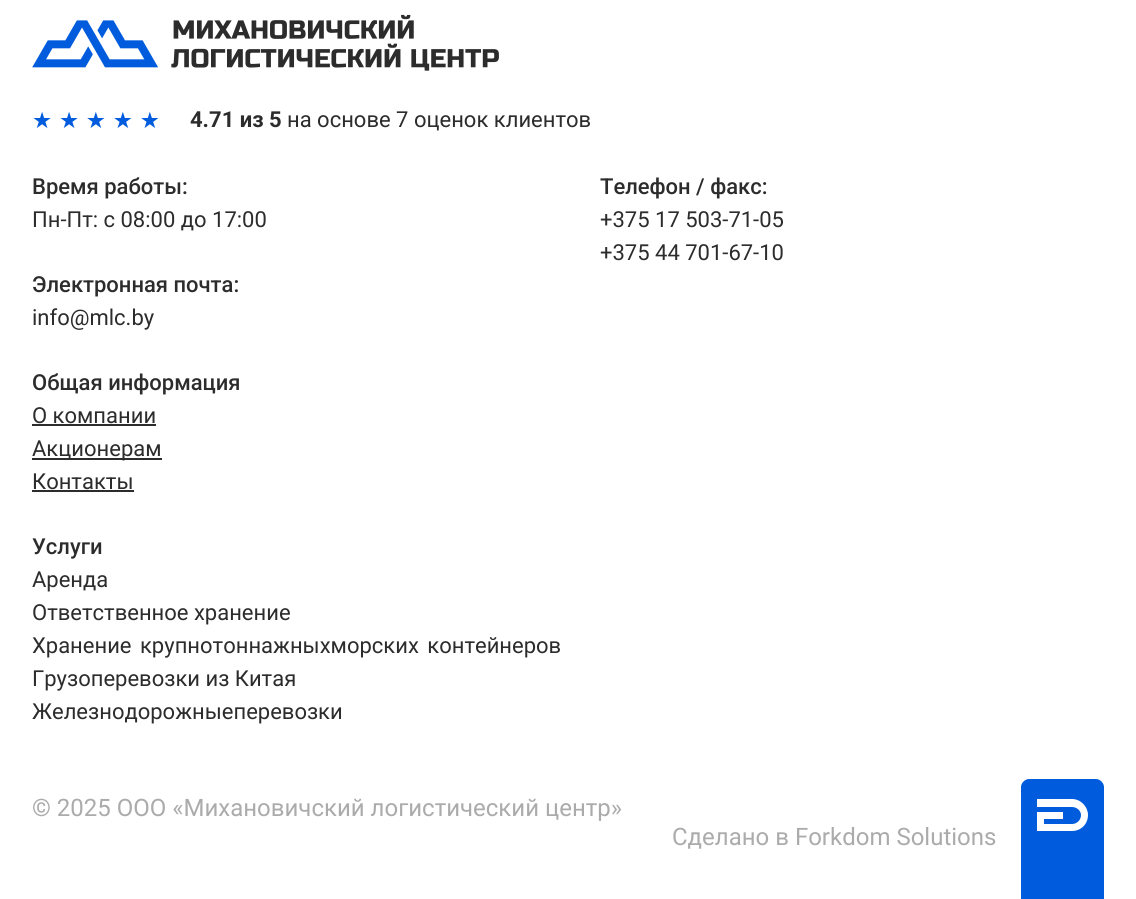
#include <cairo/cairo.h>
#include <math.h>
#include <stddef.h>

typedef struct { double x, y; const char *s; } line_t;
typedef struct { double x, y, w, h; unsigned color; } box_t;
static cairo_t *cr;

static void rgb(unsigned color)
{
	cairo_set_source_rgb(cr, (color >> 16) / 255.0, (color >> 8 & 255) / 255.0, (color & 255) / 255.0);
}

static void tracked(double x, double y, const char *s, double letter, double word)
{
	cairo_move_to(cr, x, y);
	while (*s) {
		char ch[5] = {0};
		int n = 0;
		do ch[n++] = *s++; while ((*s & 0xC0) == 0x80);
		cairo_show_text(cr, ch);
		cairo_rel_move_to(cr, letter + word * (*ch == ' '), 0);
	}
}

static void image(const char *path, double x, double y, double w, double h)
{
	cairo_surface_t *image = cairo_image_surface_create_from_png(path);
	cairo_save(cr);
	cairo_set_source_surface(cr, image, x, y);
	cairo_rectangle(cr, x, y, w, h);
	cairo_fill(cr);
	cairo_restore(cr);
	cairo_surface_destroy(image);
}

int main(void) {
	cairo_surface_t *surface = cairo_image_surface_create(CAIRO_FORMAT_RGB24, 1136, 899);
	cr = cairo_create(surface);
	cairo_font_options_t *options = cairo_font_options_create();
	cairo_font_options_set_hint_metrics(options, CAIRO_HINT_METRICS_OFF);
	cairo_font_options_set_hint_style(options, CAIRO_HINT_STYLE_NONE);
	cairo_set_font_options(cr, options);
	cairo_set_miter_limit(cr, 4);
	cairo_pattern_t *gradient;
	rgb(0xffffff);
	cairo_paint(cr);
	image("img/1.png", 32, 14, 467, 57);
	{
		static const box_t items[] = {
			{32, 424, 124, 2, 0x2c2c2c},
			{32, 458, 130, 2, 0x2c2c2c},
			{32, 490, 102, 2, 0x2c2c2c},
		};
		for (size_t i = 0; i < sizeof items / sizeof *items; i++) {
			rgb(items[i].color);
			cairo_rectangle(cr, items[i].x, items[i].y, items[i].w, items[i].h);
			cairo_fill(cr);
		}
	}
	rgb(0x005cdd);
	cairo_new_path(cr);
	cairo_move_to(cr, 1021, 787);
	cairo_curve_to(cr, 1021, 783, 1025, 779, 1029, 779);
	cairo_line_to(cr, 1096, 779);
	cairo_curve_to(cr, 1100, 779, 1104, 783, 1104, 787);
	cairo_line_to(cr, 1104, 899);
	cairo_line_to(cr, 1021, 899);
	cairo_close_path(cr);
	cairo_fill(cr);
	rgb(0xffffff);
	cairo_new_path(cr);
	cairo_move_to(cr, 1081, 815);
	cairo_curve_to(cr, 1081, 811, 1077, 807, 1072, 807);
	cairo_line_to(cr, 1037, 807);
	cairo_line_to(cr, 1037, 799);
	cairo_line_to(cr, 1072, 799);
	cairo_curve_to(cr, 1081, 799, 1088, 807, 1088, 815);
	cairo_curve_to(cr, 1088, 824, 1081, 831, 1072, 831);
	cairo_line_to(cr, 1037, 831);
	cairo_line_to(cr, 1037, 812);
	cairo_line_to(cr, 1063, 812);
	cairo_line_to(cr, 1063, 819);
	cairo_line_to(cr, 1044, 819);
	cairo_line_to(cr, 1044, 824);
	cairo_line_to(cr, 1072, 824);
	cairo_curve_to(cr, 1077, 824, 1081, 820, 1081, 815);
	cairo_close_path(cr);
	cairo_fill(cr);
	cairo_select_font_face(cr, "DejaVu Sans", CAIRO_FONT_SLANT_NORMAL, CAIRO_FONT_WEIGHT_NORMAL);
	cairo_set_font_size(cr, 22.5);
	gradient = cairo_pattern_create_linear(32, 121, 166, 121);
	cairo_pattern_add_color_stop_rgba(gradient, 0.94, 0, 0.361, 0.867, 1);
	cairo_pattern_add_color_stop_rgba(gradient, 0.94, 0.875, 0.875, 0.875, 1);
	cairo_set_source(cr, gradient);
	cairo_pattern_destroy(gradient);
	tracked(32, 128, "★★★★★", 6.75, 0);
	cairo_select_font_face(cr, "Roboto", CAIRO_FONT_SLANT_NORMAL, CAIRO_FONT_WEIGHT_BOLD);
	cairo_set_font_size(cr, 22);
	rgb(0x2c2c2c);
	cairo_move_to(cr, 190, 127);
	cairo_show_text(cr, "4.71 из 5");
	cairo_select_font_face(cr, "Roboto", CAIRO_FONT_SLANT_NORMAL, CAIRO_FONT_WEIGHT_NORMAL);
	cairo_move_to(cr, 287, 127);
	cairo_show_text(cr, "на основе 7 оценок клиентов");
	cairo_select_font_face(cr, "Roboto Medium", CAIRO_FONT_SLANT_NORMAL, CAIRO_FONT_WEIGHT_NORMAL);
	cairo_move_to(cr, 32, 194);
	cairo_show_text(cr, "Время работы:");
	cairo_select_font_face(cr, "Roboto", CAIRO_FONT_SLANT_NORMAL, CAIRO_FONT_WEIGHT_NORMAL);
	cairo_move_to(cr, 32, 227);
	cairo_show_text(cr, "Пн-Пт: с 08:00 до 17:00");
	cairo_select_font_face(cr, "Roboto Medium", CAIRO_FONT_SLANT_NORMAL, CAIRO_FONT_WEIGHT_NORMAL);
	cairo_move_to(cr, 600, 194);
	cairo_show_text(cr, "Телефон / факс:");
	cairo_select_font_face(cr, "Roboto", CAIRO_FONT_SLANT_NORMAL, CAIRO_FONT_WEIGHT_NORMAL);
	cairo_move_to(cr, 600, 227);
	cairo_show_text(cr, "+375 17 503-71-05");
	cairo_move_to(cr, 600, 260);
	cairo_show_text(cr, "+375 44 701-67-10");
	cairo_select_font_face(cr, "Roboto Medium", CAIRO_FONT_SLANT_NORMAL, CAIRO_FONT_WEIGHT_NORMAL);
	cairo_move_to(cr, 32, 292);
	cairo_show_text(cr, "Электронная почта:");
	cairo_select_font_face(cr, "Roboto", CAIRO_FONT_SLANT_NORMAL, CAIRO_FONT_WEIGHT_NORMAL);
	cairo_move_to(cr, 32, 325);
	cairo_show_text(cr, "info@mlc.by");
	cairo_select_font_face(cr, "Roboto Medium", CAIRO_FONT_SLANT_NORMAL, CAIRO_FONT_WEIGHT_NORMAL);
	cairo_move_to(cr, 32, 390);
	cairo_show_text(cr, "Общая информация");
	cairo_select_font_face(cr, "Roboto", CAIRO_FONT_SLANT_NORMAL, CAIRO_FONT_WEIGHT_NORMAL);
	{
		static const line_t items[] = {
			{32, 423, "О компании"},
			{32, 456, "Акционерам"},
			{32, 489, "Контакты"},
		};
		for (size_t i = 0; i < sizeof items / sizeof *items; i++) {
			cairo_move_to(cr, items[i].x, items[i].y);
			cairo_show_text(cr, items[i].s);
		}
	}
	cairo_select_font_face(cr, "Roboto Medium", CAIRO_FONT_SLANT_NORMAL, CAIRO_FONT_WEIGHT_NORMAL);
	cairo_move_to(cr, 32, 554);
	cairo_show_text(cr, "Услуги");
	cairo_select_font_face(cr, "Roboto", CAIRO_FONT_SLANT_NORMAL, CAIRO_FONT_WEIGHT_NORMAL);
	cairo_move_to(cr, 32, 587);
	cairo_show_text(cr, "Аренда");
	cairo_move_to(cr, 32, 620);
	cairo_show_text(cr, "Ответственное хранение");
	tracked(32, 653, "Хранение крупнотоннажныхморских контейнеров", 0, 3);
	cairo_move_to(cr, 32, 686);
	cairo_show_text(cr, "Грузоперевозки из Китая");
	cairo_move_to(cr, 32, 719);
	cairo_show_text(cr, "Железнодорожныеперевозки");
	cairo_set_font_size(cr, 24);
	rgb(0xababab);
	cairo_move_to(cr, 32, 816);
	cairo_show_text(cr, "© 2025 ООО «Михановичский логистический центр»");
	cairo_move_to(cr, 672, 845);
	cairo_show_text(cr, "Сделано в Forkdom Solutions");
	cairo_surface_write_to_png(surface, "page.png");
	cairo_font_options_destroy(options);
	cairo_destroy(cr);
	cairo_surface_destroy(surface);
	return 0;
}
